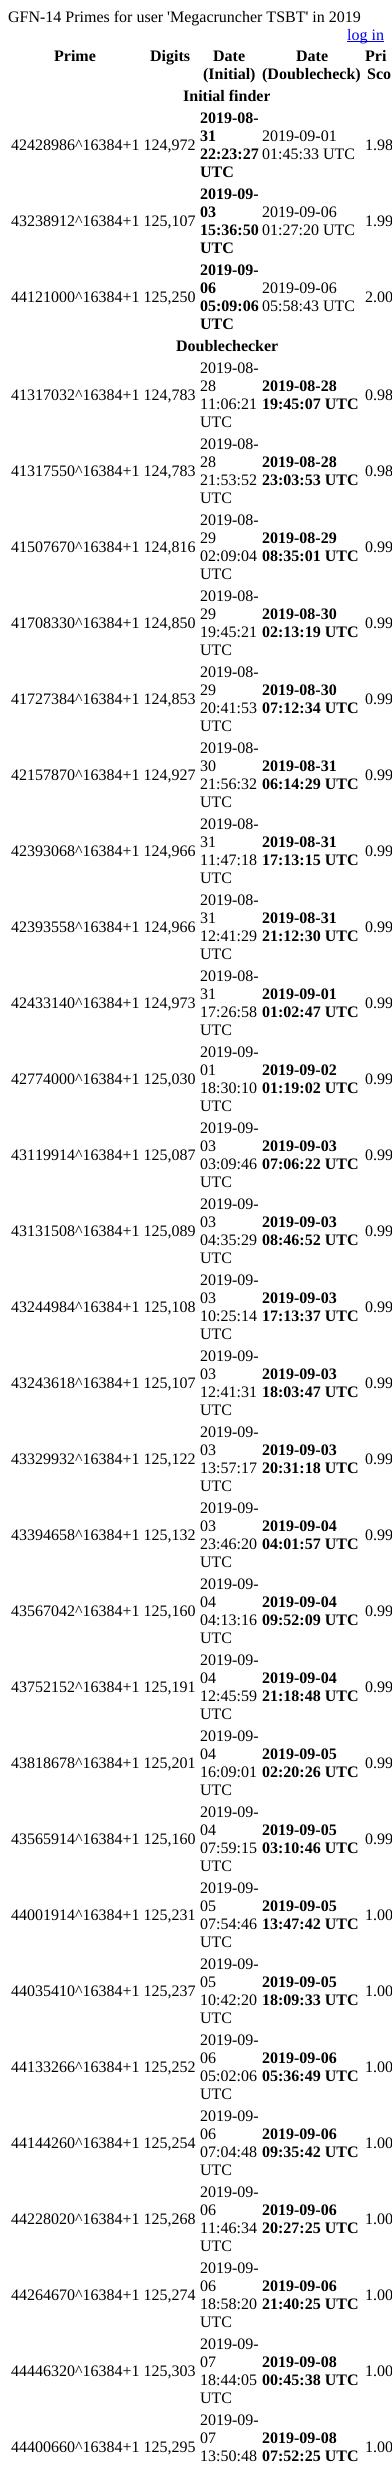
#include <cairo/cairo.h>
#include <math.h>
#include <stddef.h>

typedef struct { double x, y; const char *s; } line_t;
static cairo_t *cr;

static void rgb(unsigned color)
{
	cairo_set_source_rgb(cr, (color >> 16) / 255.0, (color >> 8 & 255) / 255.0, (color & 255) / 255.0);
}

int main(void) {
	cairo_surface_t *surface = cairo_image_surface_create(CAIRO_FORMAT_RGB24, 392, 2466);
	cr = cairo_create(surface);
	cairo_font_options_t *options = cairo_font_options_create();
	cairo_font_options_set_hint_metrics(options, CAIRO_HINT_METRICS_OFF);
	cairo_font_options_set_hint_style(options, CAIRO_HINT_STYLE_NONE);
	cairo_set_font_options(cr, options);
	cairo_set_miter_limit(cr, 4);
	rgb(0xffffff);
	cairo_paint(cr);
	rgb(0x0000ee);
	cairo_rectangle(cr, 347, 41, 37, 1);
	cairo_fill(cr);
	cairo_select_font_face(cr, "Liberation Serif", CAIRO_FONT_SLANT_NORMAL, CAIRO_FONT_WEIGHT_NORMAL);
	cairo_set_font_size(cr, 16);
	rgb(0x000000);
	cairo_move_to(cr, 8, 22);
	cairo_show_text(cr, "GFN-14 Primes for user 'Megacruncher TSBT' in 2019");
	rgb(0x0000ee);
	cairo_move_to(cr, 347, 40);
	cairo_show_text(cr, "log in");
	cairo_select_font_face(cr, "Liberation Serif", CAIRO_FONT_SLANT_NORMAL, CAIRO_FONT_WEIGHT_BOLD);
	rgb(0x000000);
	{
		static const line_t items[] = {
			{54, 61, "Prime"},
			{150, 61, "Digits"},
			{213, 61, "Date"},
			{203, 79, "(Initial)"},
			{296, 61, "Date"},
			{262, 79, "(Doublecheck)"},
			{365, 61, "Pri"},
			{367, 79, "Sco"},
			{183, 101, "Initial finder"},
		};
		for (size_t i = 0; i < sizeof items / sizeof *items; i++) {
			cairo_move_to(cr, items[i].x, items[i].y);
			cairo_show_text(cr, items[i].s);
		}
	}
	cairo_select_font_face(cr, "Liberation Serif", CAIRO_FONT_SLANT_NORMAL, CAIRO_FONT_WEIGHT_NORMAL);
	cairo_move_to(cr, 11, 150);
	cairo_show_text(cr, "42428986^16384+1 124,972");
	cairo_select_font_face(cr, "Liberation Serif", CAIRO_FONT_SLANT_NORMAL, CAIRO_FONT_WEIGHT_BOLD);
	{
		static const line_t items[] = {
			{200, 123, "2019-08-"},
			{200, 141, "31"},
			{200, 159, "22:23:27"},
			{200, 177, "UTC"},
		};
		for (size_t i = 0; i < sizeof items / sizeof *items; i++) {
			cairo_move_to(cr, items[i].x, items[i].y);
			cairo_show_text(cr, items[i].s);
		}
	}
	cairo_select_font_face(cr, "Liberation Serif", CAIRO_FONT_SLANT_NORMAL, CAIRO_FONT_WEIGHT_NORMAL);
	{
		static const line_t items[] = {
			{262, 141, "2019-09-01"},
			{262, 159, "01:45:33 UTC"},
			{365, 150, "1.98"},
			{11, 226, "43238912^16384+1 125,107"},
		};
		for (size_t i = 0; i < sizeof items / sizeof *items; i++) {
			cairo_move_to(cr, items[i].x, items[i].y);
			cairo_show_text(cr, items[i].s);
		}
	}
	cairo_select_font_face(cr, "Liberation Serif", CAIRO_FONT_SLANT_NORMAL, CAIRO_FONT_WEIGHT_BOLD);
	{
		static const line_t items[] = {
			{200, 199, "2019-09-"},
			{200, 217, "03"},
			{200, 235, "15:36:50"},
			{200, 253, "UTC"},
		};
		for (size_t i = 0; i < sizeof items / sizeof *items; i++) {
			cairo_move_to(cr, items[i].x, items[i].y);
			cairo_show_text(cr, items[i].s);
		}
	}
	cairo_select_font_face(cr, "Liberation Serif", CAIRO_FONT_SLANT_NORMAL, CAIRO_FONT_WEIGHT_NORMAL);
	{
		static const line_t items[] = {
			{262, 217, "2019-09-06"},
			{262, 235, "01:27:20 UTC"},
			{365, 226, "1.99"},
			{11, 302, "44121000^16384+1 125,250"},
		};
		for (size_t i = 0; i < sizeof items / sizeof *items; i++) {
			cairo_move_to(cr, items[i].x, items[i].y);
			cairo_show_text(cr, items[i].s);
		}
	}
	cairo_select_font_face(cr, "Liberation Serif", CAIRO_FONT_SLANT_NORMAL, CAIRO_FONT_WEIGHT_BOLD);
	{
		static const line_t items[] = {
			{200, 275, "2019-09-"},
			{200, 293, "06"},
			{200, 311, "05:09:06"},
			{200, 329, "UTC"},
		};
		for (size_t i = 0; i < sizeof items / sizeof *items; i++) {
			cairo_move_to(cr, items[i].x, items[i].y);
			cairo_show_text(cr, items[i].s);
		}
	}
	cairo_select_font_face(cr, "Liberation Serif", CAIRO_FONT_SLANT_NORMAL, CAIRO_FONT_WEIGHT_NORMAL);
	{
		static const line_t items[] = {
			{262, 293, "2019-09-06"},
			{262, 311, "05:58:43 UTC"},
			{365, 302, "2.00"},
		};
		for (size_t i = 0; i < sizeof items / sizeof *items; i++) {
			cairo_move_to(cr, items[i].x, items[i].y);
			cairo_show_text(cr, items[i].s);
		}
	}
	cairo_select_font_face(cr, "Liberation Serif", CAIRO_FONT_SLANT_NORMAL, CAIRO_FONT_WEIGHT_BOLD);
	cairo_move_to(cr, 176, 351);
	cairo_show_text(cr, "Doublechecker");
	cairo_select_font_face(cr, "Liberation Serif", CAIRO_FONT_SLANT_NORMAL, CAIRO_FONT_WEIGHT_NORMAL);
	{
		static const line_t items[] = {
			{11, 400, "41317032^16384+1 124,783"},
			{200, 373, "2019-08-"},
			{200, 391, "28"},
			{200, 409, "11:06:21"},
			{200, 427, "UTC"},
		};
		for (size_t i = 0; i < sizeof items / sizeof *items; i++) {
			cairo_move_to(cr, items[i].x, items[i].y);
			cairo_show_text(cr, items[i].s);
		}
	}
	cairo_select_font_face(cr, "Liberation Serif", CAIRO_FONT_SLANT_NORMAL, CAIRO_FONT_WEIGHT_BOLD);
	cairo_move_to(cr, 262, 391);
	cairo_show_text(cr, "2019-08-28");
	cairo_move_to(cr, 262, 409);
	cairo_show_text(cr, "19:45:07 UTC");
	cairo_select_font_face(cr, "Liberation Serif", CAIRO_FONT_SLANT_NORMAL, CAIRO_FONT_WEIGHT_NORMAL);
	{
		static const line_t items[] = {
			{365, 400, "0.98"},
			{11, 476, "41317550^16384+1 124,783"},
			{200, 449, "2019-08-"},
			{200, 467, "28"},
			{200, 485, "21:53:52"},
			{200, 503, "UTC"},
		};
		for (size_t i = 0; i < sizeof items / sizeof *items; i++) {
			cairo_move_to(cr, items[i].x, items[i].y);
			cairo_show_text(cr, items[i].s);
		}
	}
	cairo_select_font_face(cr, "Liberation Serif", CAIRO_FONT_SLANT_NORMAL, CAIRO_FONT_WEIGHT_BOLD);
	cairo_move_to(cr, 262, 467);
	cairo_show_text(cr, "2019-08-28");
	cairo_move_to(cr, 262, 485);
	cairo_show_text(cr, "23:03:53 UTC");
	cairo_select_font_face(cr, "Liberation Serif", CAIRO_FONT_SLANT_NORMAL, CAIRO_FONT_WEIGHT_NORMAL);
	{
		static const line_t items[] = {
			{365, 476, "0.98"},
			{11, 552, "41507670^16384+1 124,816"},
			{200, 525, "2019-08-"},
			{200, 543, "29"},
			{200, 561, "02:09:04"},
			{200, 579, "UTC"},
		};
		for (size_t i = 0; i < sizeof items / sizeof *items; i++) {
			cairo_move_to(cr, items[i].x, items[i].y);
			cairo_show_text(cr, items[i].s);
		}
	}
	cairo_select_font_face(cr, "Liberation Serif", CAIRO_FONT_SLANT_NORMAL, CAIRO_FONT_WEIGHT_BOLD);
	cairo_move_to(cr, 262, 543);
	cairo_show_text(cr, "2019-08-29");
	cairo_move_to(cr, 262, 561);
	cairo_show_text(cr, "08:35:01 UTC");
	cairo_select_font_face(cr, "Liberation Serif", CAIRO_FONT_SLANT_NORMAL, CAIRO_FONT_WEIGHT_NORMAL);
	{
		static const line_t items[] = {
			{365, 552, "0.99"},
			{11, 628, "41708330^16384+1 124,850"},
			{200, 601, "2019-08-"},
			{200, 619, "29"},
			{200, 637, "19:45:21"},
			{200, 655, "UTC"},
		};
		for (size_t i = 0; i < sizeof items / sizeof *items; i++) {
			cairo_move_to(cr, items[i].x, items[i].y);
			cairo_show_text(cr, items[i].s);
		}
	}
	cairo_select_font_face(cr, "Liberation Serif", CAIRO_FONT_SLANT_NORMAL, CAIRO_FONT_WEIGHT_BOLD);
	cairo_move_to(cr, 262, 619);
	cairo_show_text(cr, "2019-08-30");
	cairo_move_to(cr, 262, 637);
	cairo_show_text(cr, "02:13:19 UTC");
	cairo_select_font_face(cr, "Liberation Serif", CAIRO_FONT_SLANT_NORMAL, CAIRO_FONT_WEIGHT_NORMAL);
	{
		static const line_t items[] = {
			{365, 628, "0.99"},
			{11, 704, "41727384^16384+1 124,853"},
			{200, 677, "2019-08-"},
			{200, 695, "29"},
			{200, 713, "20:41:53"},
			{200, 731, "UTC"},
		};
		for (size_t i = 0; i < sizeof items / sizeof *items; i++) {
			cairo_move_to(cr, items[i].x, items[i].y);
			cairo_show_text(cr, items[i].s);
		}
	}
	cairo_select_font_face(cr, "Liberation Serif", CAIRO_FONT_SLANT_NORMAL, CAIRO_FONT_WEIGHT_BOLD);
	cairo_move_to(cr, 262, 695);
	cairo_show_text(cr, "2019-08-30");
	cairo_move_to(cr, 262, 713);
	cairo_show_text(cr, "07:12:34 UTC");
	cairo_select_font_face(cr, "Liberation Serif", CAIRO_FONT_SLANT_NORMAL, CAIRO_FONT_WEIGHT_NORMAL);
	{
		static const line_t items[] = {
			{365, 704, "0.99"},
			{11, 780, "42157870^16384+1 124,927"},
			{200, 753, "2019-08-"},
			{200, 771, "30"},
			{200, 789, "21:56:32"},
			{200, 807, "UTC"},
		};
		for (size_t i = 0; i < sizeof items / sizeof *items; i++) {
			cairo_move_to(cr, items[i].x, items[i].y);
			cairo_show_text(cr, items[i].s);
		}
	}
	cairo_select_font_face(cr, "Liberation Serif", CAIRO_FONT_SLANT_NORMAL, CAIRO_FONT_WEIGHT_BOLD);
	cairo_move_to(cr, 262, 771);
	cairo_show_text(cr, "2019-08-31");
	cairo_move_to(cr, 262, 789);
	cairo_show_text(cr, "06:14:29 UTC");
	cairo_select_font_face(cr, "Liberation Serif", CAIRO_FONT_SLANT_NORMAL, CAIRO_FONT_WEIGHT_NORMAL);
	{
		static const line_t items[] = {
			{365, 780, "0.99"},
			{11, 856, "42393068^16384+1 124,966"},
			{200, 829, "2019-08-"},
			{200, 847, "31"},
			{200, 865, "11:47:18"},
			{200, 883, "UTC"},
		};
		for (size_t i = 0; i < sizeof items / sizeof *items; i++) {
			cairo_move_to(cr, items[i].x, items[i].y);
			cairo_show_text(cr, items[i].s);
		}
	}
	cairo_select_font_face(cr, "Liberation Serif", CAIRO_FONT_SLANT_NORMAL, CAIRO_FONT_WEIGHT_BOLD);
	cairo_move_to(cr, 262, 847);
	cairo_show_text(cr, "2019-08-31");
	cairo_move_to(cr, 262, 865);
	cairo_show_text(cr, "17:13:15 UTC");
	cairo_select_font_face(cr, "Liberation Serif", CAIRO_FONT_SLANT_NORMAL, CAIRO_FONT_WEIGHT_NORMAL);
	{
		static const line_t items[] = {
			{365, 856, "0.99"},
			{11, 932, "42393558^16384+1 124,966"},
			{200, 905, "2019-08-"},
			{200, 923, "31"},
			{200, 941, "12:41:29"},
			{200, 959, "UTC"},
		};
		for (size_t i = 0; i < sizeof items / sizeof *items; i++) {
			cairo_move_to(cr, items[i].x, items[i].y);
			cairo_show_text(cr, items[i].s);
		}
	}
	cairo_select_font_face(cr, "Liberation Serif", CAIRO_FONT_SLANT_NORMAL, CAIRO_FONT_WEIGHT_BOLD);
	cairo_move_to(cr, 262, 923);
	cairo_show_text(cr, "2019-08-31");
	cairo_move_to(cr, 262, 941);
	cairo_show_text(cr, "21:12:30 UTC");
	cairo_select_font_face(cr, "Liberation Serif", CAIRO_FONT_SLANT_NORMAL, CAIRO_FONT_WEIGHT_NORMAL);
	{
		static const line_t items[] = {
			{365, 932, "0.99"},
			{11, 1008, "42433140^16384+1 124,973"},
			{200, 981, "2019-08-"},
			{200, 999, "31"},
			{200, 1017, "17:26:58"},
			{200, 1035, "UTC"},
		};
		for (size_t i = 0; i < sizeof items / sizeof *items; i++) {
			cairo_move_to(cr, items[i].x, items[i].y);
			cairo_show_text(cr, items[i].s);
		}
	}
	cairo_select_font_face(cr, "Liberation Serif", CAIRO_FONT_SLANT_NORMAL, CAIRO_FONT_WEIGHT_BOLD);
	cairo_move_to(cr, 262, 999);
	cairo_show_text(cr, "2019-09-01");
	cairo_move_to(cr, 262, 1017);
	cairo_show_text(cr, "01:02:47 UTC");
	cairo_select_font_face(cr, "Liberation Serif", CAIRO_FONT_SLANT_NORMAL, CAIRO_FONT_WEIGHT_NORMAL);
	{
		static const line_t items[] = {
			{365, 1008, "0.99"},
			{11, 1084, "42774000^16384+1 125,030"},
			{200, 1057, "2019-09-"},
			{200, 1075, "01"},
			{200, 1093, "18:30:10"},
			{200, 1111, "UTC"},
		};
		for (size_t i = 0; i < sizeof items / sizeof *items; i++) {
			cairo_move_to(cr, items[i].x, items[i].y);
			cairo_show_text(cr, items[i].s);
		}
	}
	cairo_select_font_face(cr, "Liberation Serif", CAIRO_FONT_SLANT_NORMAL, CAIRO_FONT_WEIGHT_BOLD);
	cairo_move_to(cr, 262, 1075);
	cairo_show_text(cr, "2019-09-02");
	cairo_move_to(cr, 262, 1093);
	cairo_show_text(cr, "01:19:02 UTC");
	cairo_select_font_face(cr, "Liberation Serif", CAIRO_FONT_SLANT_NORMAL, CAIRO_FONT_WEIGHT_NORMAL);
	{
		static const line_t items[] = {
			{365, 1084, "0.99"},
			{11, 1160, "43119914^16384+1 125,087"},
			{200, 1133, "2019-09-"},
			{200, 1151, "03"},
			{200, 1169, "03:09:46"},
			{200, 1187, "UTC"},
		};
		for (size_t i = 0; i < sizeof items / sizeof *items; i++) {
			cairo_move_to(cr, items[i].x, items[i].y);
			cairo_show_text(cr, items[i].s);
		}
	}
	cairo_select_font_face(cr, "Liberation Serif", CAIRO_FONT_SLANT_NORMAL, CAIRO_FONT_WEIGHT_BOLD);
	cairo_move_to(cr, 262, 1151);
	cairo_show_text(cr, "2019-09-03");
	cairo_move_to(cr, 262, 1169);
	cairo_show_text(cr, "07:06:22 UTC");
	cairo_select_font_face(cr, "Liberation Serif", CAIRO_FONT_SLANT_NORMAL, CAIRO_FONT_WEIGHT_NORMAL);
	{
		static const line_t items[] = {
			{365, 1160, "0.99"},
			{11, 1236, "43131508^16384+1 125,089"},
			{200, 1209, "2019-09-"},
			{200, 1227, "03"},
			{200, 1245, "04:35:29"},
			{200, 1263, "UTC"},
		};
		for (size_t i = 0; i < sizeof items / sizeof *items; i++) {
			cairo_move_to(cr, items[i].x, items[i].y);
			cairo_show_text(cr, items[i].s);
		}
	}
	cairo_select_font_face(cr, "Liberation Serif", CAIRO_FONT_SLANT_NORMAL, CAIRO_FONT_WEIGHT_BOLD);
	cairo_move_to(cr, 262, 1227);
	cairo_show_text(cr, "2019-09-03");
	cairo_move_to(cr, 262, 1245);
	cairo_show_text(cr, "08:46:52 UTC");
	cairo_select_font_face(cr, "Liberation Serif", CAIRO_FONT_SLANT_NORMAL, CAIRO_FONT_WEIGHT_NORMAL);
	{
		static const line_t items[] = {
			{365, 1236, "0.99"},
			{11, 1312, "43244984^16384+1 125,108"},
			{200, 1285, "2019-09-"},
			{200, 1303, "03"},
			{200, 1321, "10:25:14"},
			{200, 1339, "UTC"},
		};
		for (size_t i = 0; i < sizeof items / sizeof *items; i++) {
			cairo_move_to(cr, items[i].x, items[i].y);
			cairo_show_text(cr, items[i].s);
		}
	}
	cairo_select_font_face(cr, "Liberation Serif", CAIRO_FONT_SLANT_NORMAL, CAIRO_FONT_WEIGHT_BOLD);
	cairo_move_to(cr, 262, 1303);
	cairo_show_text(cr, "2019-09-03");
	cairo_move_to(cr, 262, 1321);
	cairo_show_text(cr, "17:13:37 UTC");
	cairo_select_font_face(cr, "Liberation Serif", CAIRO_FONT_SLANT_NORMAL, CAIRO_FONT_WEIGHT_NORMAL);
	{
		static const line_t items[] = {
			{365, 1312, "0.99"},
			{11, 1388, "43243618^16384+1 125,107"},
			{200, 1361, "2019-09-"},
			{200, 1379, "03"},
			{200, 1397, "12:41:31"},
			{200, 1415, "UTC"},
		};
		for (size_t i = 0; i < sizeof items / sizeof *items; i++) {
			cairo_move_to(cr, items[i].x, items[i].y);
			cairo_show_text(cr, items[i].s);
		}
	}
	cairo_select_font_face(cr, "Liberation Serif", CAIRO_FONT_SLANT_NORMAL, CAIRO_FONT_WEIGHT_BOLD);
	cairo_move_to(cr, 262, 1379);
	cairo_show_text(cr, "2019-09-03");
	cairo_move_to(cr, 262, 1397);
	cairo_show_text(cr, "18:03:47 UTC");
	cairo_select_font_face(cr, "Liberation Serif", CAIRO_FONT_SLANT_NORMAL, CAIRO_FONT_WEIGHT_NORMAL);
	{
		static const line_t items[] = {
			{365, 1388, "0.99"},
			{11, 1464, "43329932^16384+1 125,122"},
			{200, 1437, "2019-09-"},
			{200, 1455, "03"},
			{200, 1473, "13:57:17"},
			{200, 1491, "UTC"},
		};
		for (size_t i = 0; i < sizeof items / sizeof *items; i++) {
			cairo_move_to(cr, items[i].x, items[i].y);
			cairo_show_text(cr, items[i].s);
		}
	}
	cairo_select_font_face(cr, "Liberation Serif", CAIRO_FONT_SLANT_NORMAL, CAIRO_FONT_WEIGHT_BOLD);
	cairo_move_to(cr, 262, 1455);
	cairo_show_text(cr, "2019-09-03");
	cairo_move_to(cr, 262, 1473);
	cairo_show_text(cr, "20:31:18 UTC");
	cairo_select_font_face(cr, "Liberation Serif", CAIRO_FONT_SLANT_NORMAL, CAIRO_FONT_WEIGHT_NORMAL);
	{
		static const line_t items[] = {
			{365, 1464, "0.99"},
			{11, 1540, "43394658^16384+1 125,132"},
			{200, 1513, "2019-09-"},
			{200, 1531, "03"},
			{200, 1549, "23:46:20"},
			{200, 1567, "UTC"},
		};
		for (size_t i = 0; i < sizeof items / sizeof *items; i++) {
			cairo_move_to(cr, items[i].x, items[i].y);
			cairo_show_text(cr, items[i].s);
		}
	}
	cairo_select_font_face(cr, "Liberation Serif", CAIRO_FONT_SLANT_NORMAL, CAIRO_FONT_WEIGHT_BOLD);
	cairo_move_to(cr, 262, 1531);
	cairo_show_text(cr, "2019-09-04");
	cairo_move_to(cr, 262, 1549);
	cairo_show_text(cr, "04:01:57 UTC");
	cairo_select_font_face(cr, "Liberation Serif", CAIRO_FONT_SLANT_NORMAL, CAIRO_FONT_WEIGHT_NORMAL);
	{
		static const line_t items[] = {
			{365, 1540, "0.99"},
			{11, 1616, "43567042^16384+1 125,160"},
			{200, 1589, "2019-09-"},
			{200, 1607, "04"},
			{200, 1625, "04:13:16"},
			{200, 1643, "UTC"},
		};
		for (size_t i = 0; i < sizeof items / sizeof *items; i++) {
			cairo_move_to(cr, items[i].x, items[i].y);
			cairo_show_text(cr, items[i].s);
		}
	}
	cairo_select_font_face(cr, "Liberation Serif", CAIRO_FONT_SLANT_NORMAL, CAIRO_FONT_WEIGHT_BOLD);
	cairo_move_to(cr, 262, 1607);
	cairo_show_text(cr, "2019-09-04");
	cairo_move_to(cr, 262, 1625);
	cairo_show_text(cr, "09:52:09 UTC");
	cairo_select_font_face(cr, "Liberation Serif", CAIRO_FONT_SLANT_NORMAL, CAIRO_FONT_WEIGHT_NORMAL);
	{
		static const line_t items[] = {
			{365, 1616, "0.99"},
			{11, 1692, "43752152^16384+1 125,191"},
			{200, 1665, "2019-09-"},
			{200, 1683, "04"},
			{200, 1701, "12:45:59"},
			{200, 1719, "UTC"},
		};
		for (size_t i = 0; i < sizeof items / sizeof *items; i++) {
			cairo_move_to(cr, items[i].x, items[i].y);
			cairo_show_text(cr, items[i].s);
		}
	}
	cairo_select_font_face(cr, "Liberation Serif", CAIRO_FONT_SLANT_NORMAL, CAIRO_FONT_WEIGHT_BOLD);
	cairo_move_to(cr, 262, 1683);
	cairo_show_text(cr, "2019-09-04");
	cairo_move_to(cr, 262, 1701);
	cairo_show_text(cr, "21:18:48 UTC");
	cairo_select_font_face(cr, "Liberation Serif", CAIRO_FONT_SLANT_NORMAL, CAIRO_FONT_WEIGHT_NORMAL);
	{
		static const line_t items[] = {
			{365, 1692, "0.99"},
			{11, 1768, "43818678^16384+1 125,201"},
			{200, 1741, "2019-09-"},
			{200, 1759, "04"},
			{200, 1777, "16:09:01"},
			{200, 1795, "UTC"},
		};
		for (size_t i = 0; i < sizeof items / sizeof *items; i++) {
			cairo_move_to(cr, items[i].x, items[i].y);
			cairo_show_text(cr, items[i].s);
		}
	}
	cairo_select_font_face(cr, "Liberation Serif", CAIRO_FONT_SLANT_NORMAL, CAIRO_FONT_WEIGHT_BOLD);
	cairo_move_to(cr, 262, 1759);
	cairo_show_text(cr, "2019-09-05");
	cairo_move_to(cr, 262, 1777);
	cairo_show_text(cr, "02:20:26 UTC");
	cairo_select_font_face(cr, "Liberation Serif", CAIRO_FONT_SLANT_NORMAL, CAIRO_FONT_WEIGHT_NORMAL);
	{
		static const line_t items[] = {
			{365, 1768, "0.99"},
			{11, 1844, "43565914^16384+1 125,160"},
			{200, 1817, "2019-09-"},
			{200, 1835, "04"},
			{200, 1853, "07:59:15"},
			{200, 1871, "UTC"},
		};
		for (size_t i = 0; i < sizeof items / sizeof *items; i++) {
			cairo_move_to(cr, items[i].x, items[i].y);
			cairo_show_text(cr, items[i].s);
		}
	}
	cairo_select_font_face(cr, "Liberation Serif", CAIRO_FONT_SLANT_NORMAL, CAIRO_FONT_WEIGHT_BOLD);
	cairo_move_to(cr, 262, 1835);
	cairo_show_text(cr, "2019-09-05");
	cairo_move_to(cr, 262, 1853);
	cairo_show_text(cr, "03:10:46 UTC");
	cairo_select_font_face(cr, "Liberation Serif", CAIRO_FONT_SLANT_NORMAL, CAIRO_FONT_WEIGHT_NORMAL);
	{
		static const line_t items[] = {
			{365, 1844, "0.99"},
			{11, 1920, "44001914^16384+1 125,231"},
			{200, 1893, "2019-09-"},
			{200, 1911, "05"},
			{200, 1929, "07:54:46"},
			{200, 1947, "UTC"},
		};
		for (size_t i = 0; i < sizeof items / sizeof *items; i++) {
			cairo_move_to(cr, items[i].x, items[i].y);
			cairo_show_text(cr, items[i].s);
		}
	}
	cairo_select_font_face(cr, "Liberation Serif", CAIRO_FONT_SLANT_NORMAL, CAIRO_FONT_WEIGHT_BOLD);
	cairo_move_to(cr, 262, 1911);
	cairo_show_text(cr, "2019-09-05");
	cairo_move_to(cr, 262, 1929);
	cairo_show_text(cr, "13:47:42 UTC");
	cairo_select_font_face(cr, "Liberation Serif", CAIRO_FONT_SLANT_NORMAL, CAIRO_FONT_WEIGHT_NORMAL);
	{
		static const line_t items[] = {
			{365, 1920, "1.00"},
			{11, 1996, "44035410^16384+1 125,237"},
			{200, 1969, "2019-09-"},
			{200, 1987, "05"},
			{200, 2005, "10:42:20"},
			{200, 2023, "UTC"},
		};
		for (size_t i = 0; i < sizeof items / sizeof *items; i++) {
			cairo_move_to(cr, items[i].x, items[i].y);
			cairo_show_text(cr, items[i].s);
		}
	}
	cairo_select_font_face(cr, "Liberation Serif", CAIRO_FONT_SLANT_NORMAL, CAIRO_FONT_WEIGHT_BOLD);
	cairo_move_to(cr, 262, 1987);
	cairo_show_text(cr, "2019-09-05");
	cairo_move_to(cr, 262, 2005);
	cairo_show_text(cr, "18:09:33 UTC");
	cairo_select_font_face(cr, "Liberation Serif", CAIRO_FONT_SLANT_NORMAL, CAIRO_FONT_WEIGHT_NORMAL);
	{
		static const line_t items[] = {
			{365, 1996, "1.00"},
			{11, 2072, "44133266^16384+1 125,252"},
			{200, 2045, "2019-09-"},
			{200, 2063, "06"},
			{200, 2081, "05:02:06"},
			{200, 2099, "UTC"},
		};
		for (size_t i = 0; i < sizeof items / sizeof *items; i++) {
			cairo_move_to(cr, items[i].x, items[i].y);
			cairo_show_text(cr, items[i].s);
		}
	}
	cairo_select_font_face(cr, "Liberation Serif", CAIRO_FONT_SLANT_NORMAL, CAIRO_FONT_WEIGHT_BOLD);
	cairo_move_to(cr, 262, 2063);
	cairo_show_text(cr, "2019-09-06");
	cairo_move_to(cr, 262, 2081);
	cairo_show_text(cr, "05:36:49 UTC");
	cairo_select_font_face(cr, "Liberation Serif", CAIRO_FONT_SLANT_NORMAL, CAIRO_FONT_WEIGHT_NORMAL);
	{
		static const line_t items[] = {
			{365, 2072, "1.00"},
			{11, 2148, "44144260^16384+1 125,254"},
			{200, 2121, "2019-09-"},
			{200, 2139, "06"},
			{200, 2157, "07:04:48"},
			{200, 2175, "UTC"},
		};
		for (size_t i = 0; i < sizeof items / sizeof *items; i++) {
			cairo_move_to(cr, items[i].x, items[i].y);
			cairo_show_text(cr, items[i].s);
		}
	}
	cairo_select_font_face(cr, "Liberation Serif", CAIRO_FONT_SLANT_NORMAL, CAIRO_FONT_WEIGHT_BOLD);
	cairo_move_to(cr, 262, 2139);
	cairo_show_text(cr, "2019-09-06");
	cairo_move_to(cr, 262, 2157);
	cairo_show_text(cr, "09:35:42 UTC");
	cairo_select_font_face(cr, "Liberation Serif", CAIRO_FONT_SLANT_NORMAL, CAIRO_FONT_WEIGHT_NORMAL);
	{
		static const line_t items[] = {
			{365, 2148, "1.00"},
			{11, 2224, "44228020^16384+1 125,268"},
			{200, 2197, "2019-09-"},
			{200, 2215, "06"},
			{200, 2233, "11:46:34"},
			{200, 2251, "UTC"},
		};
		for (size_t i = 0; i < sizeof items / sizeof *items; i++) {
			cairo_move_to(cr, items[i].x, items[i].y);
			cairo_show_text(cr, items[i].s);
		}
	}
	cairo_select_font_face(cr, "Liberation Serif", CAIRO_FONT_SLANT_NORMAL, CAIRO_FONT_WEIGHT_BOLD);
	cairo_move_to(cr, 262, 2215);
	cairo_show_text(cr, "2019-09-06");
	cairo_move_to(cr, 262, 2233);
	cairo_show_text(cr, "20:27:25 UTC");
	cairo_select_font_face(cr, "Liberation Serif", CAIRO_FONT_SLANT_NORMAL, CAIRO_FONT_WEIGHT_NORMAL);
	{
		static const line_t items[] = {
			{365, 2224, "1.00"},
			{11, 2300, "44264670^16384+1 125,274"},
			{200, 2273, "2019-09-"},
			{200, 2291, "06"},
			{200, 2309, "18:58:20"},
			{200, 2327, "UTC"},
		};
		for (size_t i = 0; i < sizeof items / sizeof *items; i++) {
			cairo_move_to(cr, items[i].x, items[i].y);
			cairo_show_text(cr, items[i].s);
		}
	}
	cairo_select_font_face(cr, "Liberation Serif", CAIRO_FONT_SLANT_NORMAL, CAIRO_FONT_WEIGHT_BOLD);
	cairo_move_to(cr, 262, 2291);
	cairo_show_text(cr, "2019-09-06");
	cairo_move_to(cr, 262, 2309);
	cairo_show_text(cr, "21:40:25 UTC");
	cairo_select_font_face(cr, "Liberation Serif", CAIRO_FONT_SLANT_NORMAL, CAIRO_FONT_WEIGHT_NORMAL);
	{
		static const line_t items[] = {
			{365, 2300, "1.00"},
			{11, 2376, "44446320^16384+1 125,303"},
			{200, 2349, "2019-09-"},
			{200, 2367, "07"},
			{200, 2385, "18:44:05"},
			{200, 2403, "UTC"},
		};
		for (size_t i = 0; i < sizeof items / sizeof *items; i++) {
			cairo_move_to(cr, items[i].x, items[i].y);
			cairo_show_text(cr, items[i].s);
		}
	}
	cairo_select_font_face(cr, "Liberation Serif", CAIRO_FONT_SLANT_NORMAL, CAIRO_FONT_WEIGHT_BOLD);
	cairo_move_to(cr, 262, 2367);
	cairo_show_text(cr, "2019-09-08");
	cairo_move_to(cr, 262, 2385);
	cairo_show_text(cr, "00:45:38 UTC");
	cairo_select_font_face(cr, "Liberation Serif", CAIRO_FONT_SLANT_NORMAL, CAIRO_FONT_WEIGHT_NORMAL);
	{
		static const line_t items[] = {
			{365, 2376, "1.00"},
			{11, 2452, "44400660^16384+1 125,295"},
			{200, 2425, "2019-09-"},
			{200, 2443, "07"},
			{200, 2461, "13:50:48"},
		};
		for (size_t i = 0; i < sizeof items / sizeof *items; i++) {
			cairo_move_to(cr, items[i].x, items[i].y);
			cairo_show_text(cr, items[i].s);
		}
	}
	cairo_select_font_face(cr, "Liberation Serif", CAIRO_FONT_SLANT_NORMAL, CAIRO_FONT_WEIGHT_BOLD);
	cairo_move_to(cr, 262, 2443);
	cairo_show_text(cr, "2019-09-08");
	cairo_move_to(cr, 262, 2461);
	cairo_show_text(cr, "07:52:25 UTC");
	cairo_select_font_face(cr, "Liberation Serif", CAIRO_FONT_SLANT_NORMAL, CAIRO_FONT_WEIGHT_NORMAL);
	cairo_move_to(cr, 365, 2452);
	cairo_show_text(cr, "1.00");
	cairo_surface_write_to_png(surface, "page.png");
	cairo_font_options_destroy(options);
	cairo_destroy(cr);
	cairo_surface_destroy(surface);
	return 0;
}
